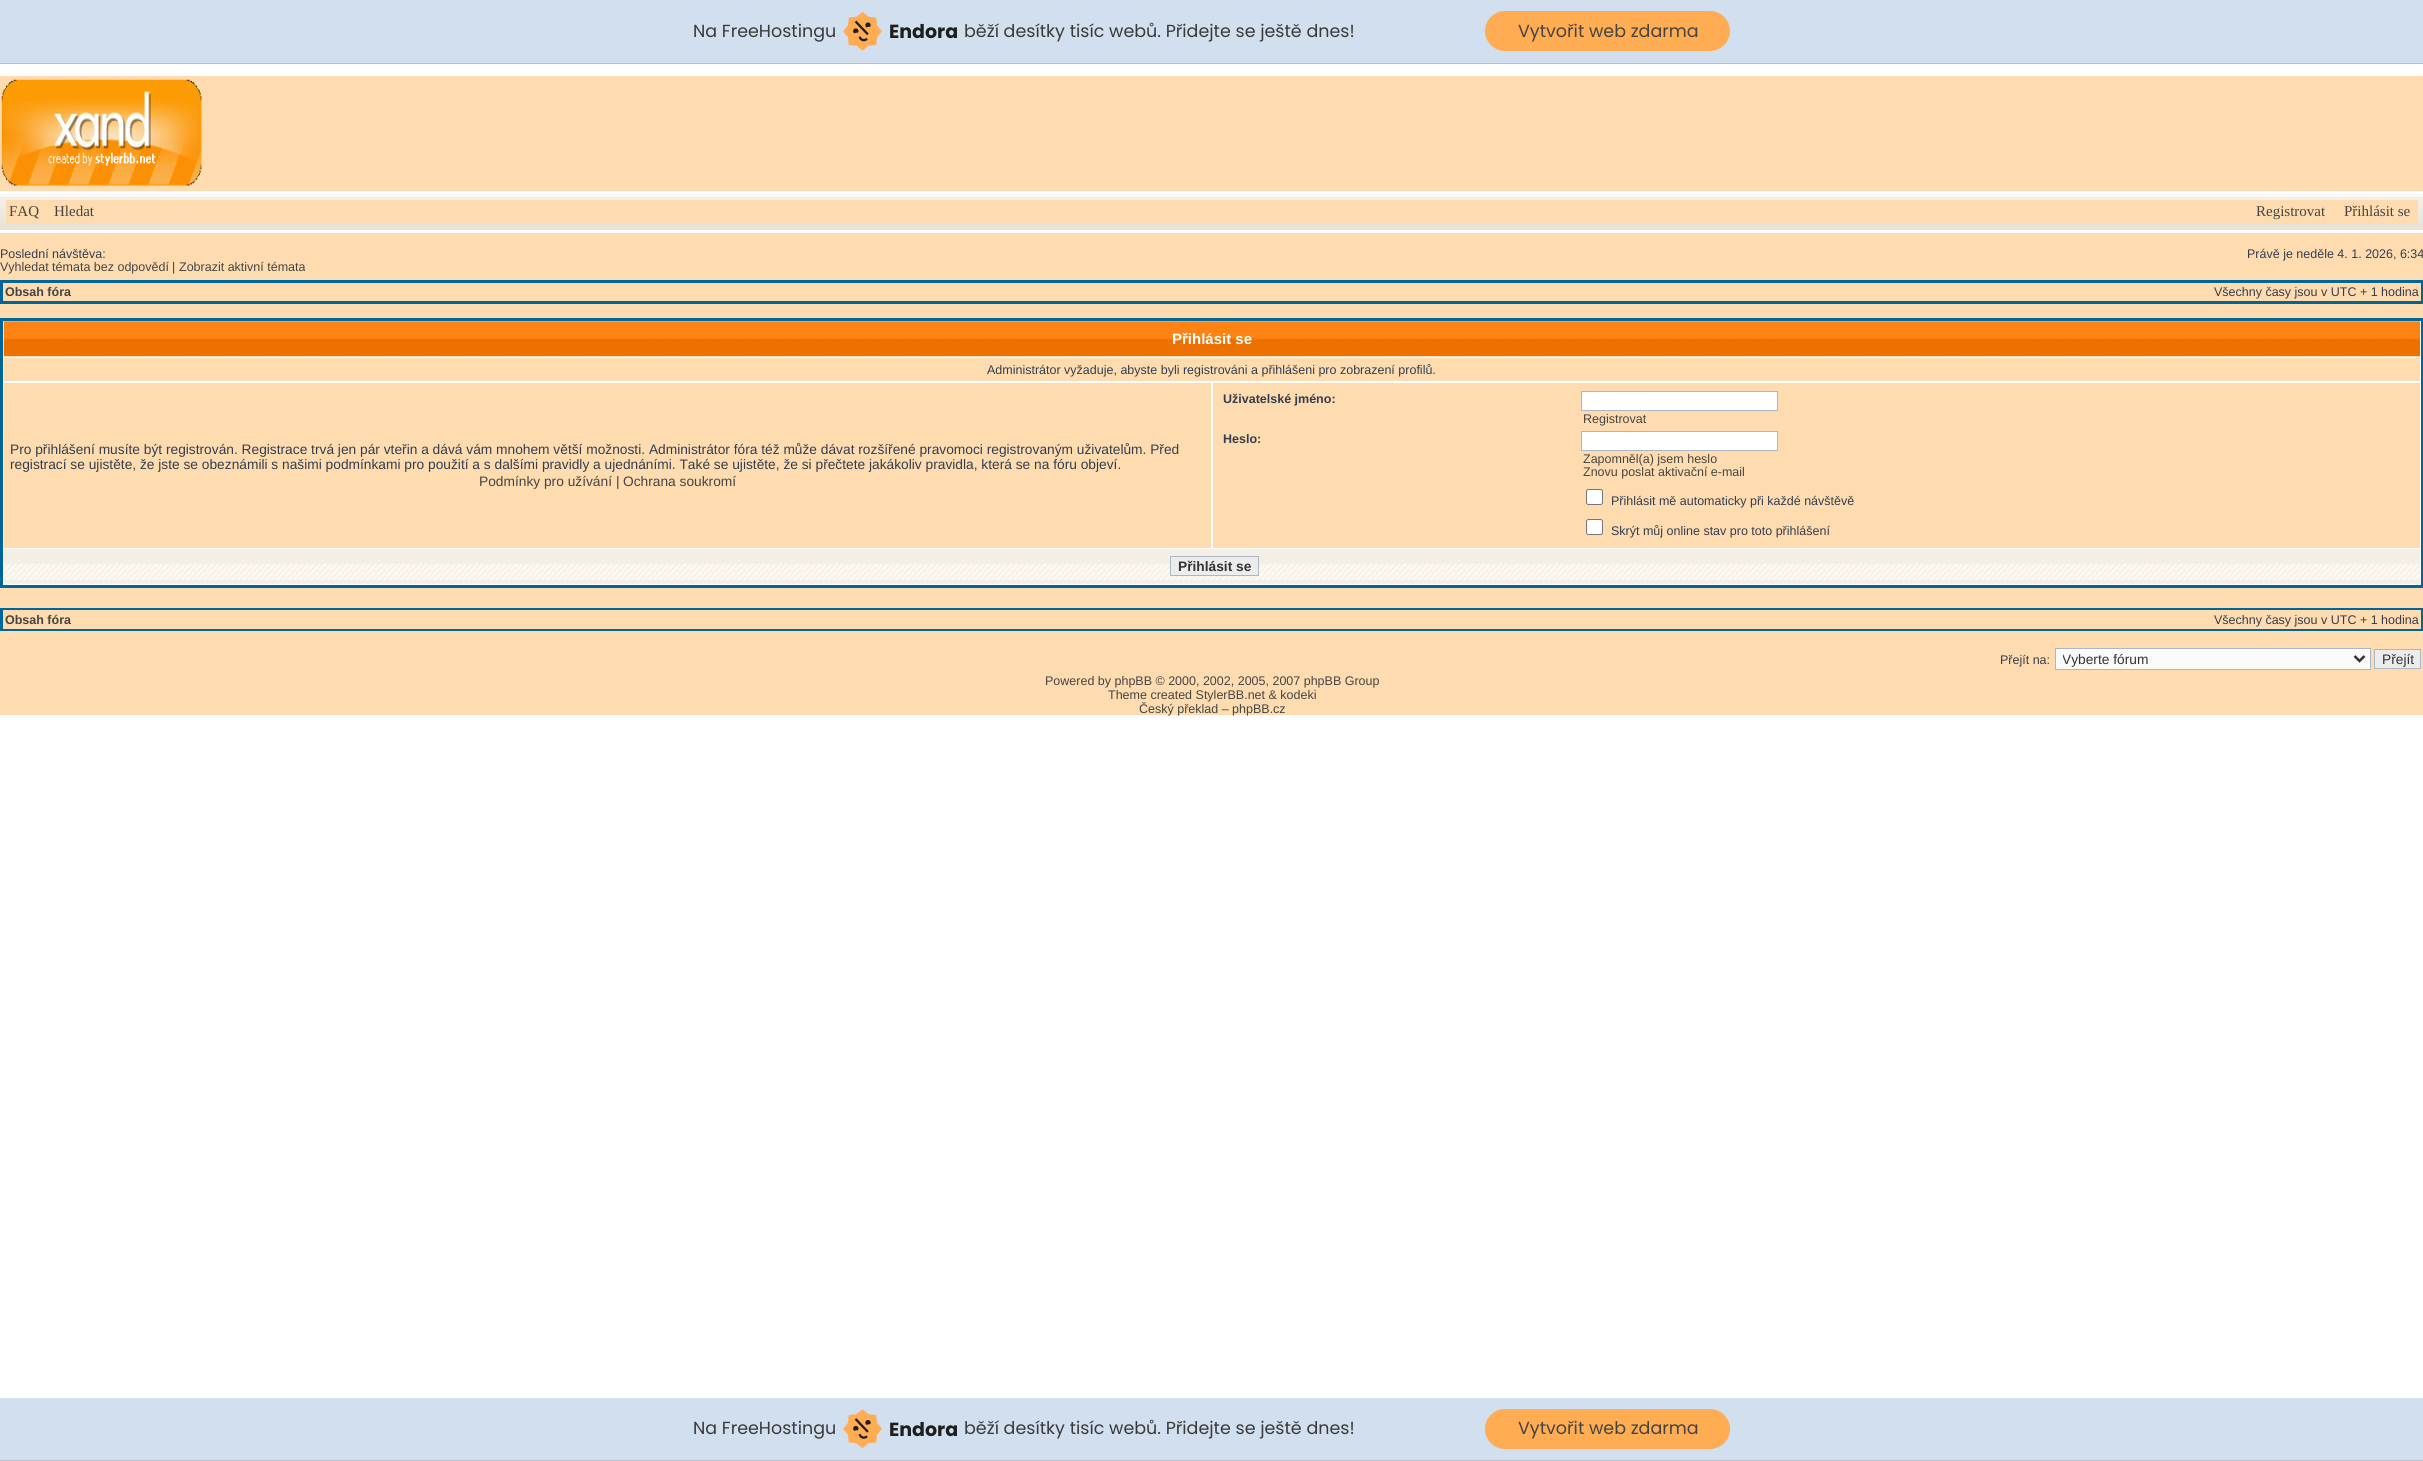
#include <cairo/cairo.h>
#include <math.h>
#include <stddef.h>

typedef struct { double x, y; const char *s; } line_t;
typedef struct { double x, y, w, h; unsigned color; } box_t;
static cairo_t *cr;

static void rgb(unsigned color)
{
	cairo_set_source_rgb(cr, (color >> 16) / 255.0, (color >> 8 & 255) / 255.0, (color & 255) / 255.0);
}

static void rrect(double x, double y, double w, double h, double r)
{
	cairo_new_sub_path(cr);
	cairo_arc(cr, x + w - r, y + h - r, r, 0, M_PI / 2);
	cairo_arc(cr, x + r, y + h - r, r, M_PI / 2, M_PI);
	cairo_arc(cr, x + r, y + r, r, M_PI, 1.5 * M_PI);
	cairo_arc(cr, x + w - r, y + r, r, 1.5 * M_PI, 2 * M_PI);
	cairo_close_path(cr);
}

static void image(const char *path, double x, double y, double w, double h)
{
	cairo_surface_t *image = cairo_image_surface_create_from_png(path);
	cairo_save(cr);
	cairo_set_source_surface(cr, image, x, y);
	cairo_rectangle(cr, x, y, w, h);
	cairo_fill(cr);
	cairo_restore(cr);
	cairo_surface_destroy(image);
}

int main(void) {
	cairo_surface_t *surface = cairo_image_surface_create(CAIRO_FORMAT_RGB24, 2423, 1461);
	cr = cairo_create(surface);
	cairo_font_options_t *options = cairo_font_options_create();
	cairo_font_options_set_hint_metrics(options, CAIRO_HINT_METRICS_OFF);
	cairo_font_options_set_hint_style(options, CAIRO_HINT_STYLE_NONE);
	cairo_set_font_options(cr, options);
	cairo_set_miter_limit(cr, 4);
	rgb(0xffffff);
	cairo_paint(cr);
	rgb(0xd2dfef);
	cairo_rectangle(cr, 0, 0, 2423, 63);
	cairo_fill(cr);
	rgb(0xbebfc4);
	cairo_rectangle(cr, 0, 63, 2423, 1);
	cairo_fill(cr);
	image("img/1.png", 843, 11, 39, 40);
	rgb(0xffac52);
	rrect(1485, 11, 245, 40, 20);
	cairo_fill(cr);
	rgb(0xffdcb0);
	cairo_rectangle(cr, 0, 76, 2423, 639);
	cairo_fill(cr);
	image("img/2.png", 1, 79, 201, 107);
	image("img/3.png", 0, 194, 2423, 36);
	{
		static const box_t items[] = {
			{0, 191, 2423, 3, 0xffffff},
			{0, 230, 2423, 3, 0xffffff},
			{6, 200, 2412, 24, 0xffdcb0},
		};
		for (size_t i = 0; i < sizeof items / sizeof *items; i++) {
			rgb(items[i].color);
			cairo_rectangle(cr, items[i].x, items[i].y, items[i].w, items[i].h);
			cairo_fill(cr);
		}
	}
	cairo_rectangle(cr, 1.5, 281.5, 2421, 21);
	rgb(0x006699);
	cairo_set_line_width(cr, 3);
	cairo_stroke(cr);
	rgb(0xffffff);
	cairo_rectangle(cr, 1.5, 319.5, 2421, 267);
	cairo_fill_preserve(cr);
	rgb(0x006699);
	cairo_stroke(cr);
	image("img/4.png", 3, 321, 2417, 36);
	{
		static const box_t items[] = {
			{4, 358, 2416, 23, 0xffdcb0},
			{4, 383, 1207, 165, 0xffdcb0},
			{1213, 383, 1207, 165, 0xffdcb0},
		};
		for (size_t i = 0; i < sizeof items / sizeof *items; i++) {
			rgb(items[i].color);
			cairo_rectangle(cr, items[i].x, items[i].y, items[i].w, items[i].h);
			cairo_fill(cr);
		}
	}
	rgb(0xffffff);
	cairo_rectangle(cr, 1581.5, 391.5, 196, 19);
	cairo_fill_preserve(cr);
	rgb(0xa9b8c2);
	cairo_set_line_width(cr, 1);
	cairo_stroke(cr);
	rgb(0xffffff);
	cairo_rectangle(cr, 1581.5, 431.5, 196, 19);
	cairo_fill_preserve(cr);
	rgb(0xa9b8c2);
	cairo_stroke(cr);
	rgb(0xffffff);
	rrect(1586.5, 489.5, 16, 15, 2);
	cairo_fill_preserve(cr);
	rgb(0x767676);
	cairo_stroke(cr);
	rgb(0xffffff);
	rrect(1586.5, 519.5, 16, 15, 2);
	cairo_fill_preserve(cr);
	rgb(0x767676);
	cairo_stroke(cr);
	image("img/5.png", 3, 548, 2417, 36);
	rgb(0xececec);
	cairo_rectangle(cr, 1170.5, 556.5, 88, 19);
	cairo_fill_preserve(cr);
	rgb(0xa9b8c2);
	cairo_stroke(cr);
	cairo_rectangle(cr, 1.5, 609.5, 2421, 20);
	rgb(0x006699);
	cairo_set_line_width(cr, 3);
	cairo_stroke(cr);
	rgb(0xffdcb0);
	cairo_rectangle(cr, 3, 610, 2418, 19);
	cairo_fill(cr);
	rgb(0xfafafa);
	cairo_rectangle(cr, 2055.5, 648.5, 315, 21);
	cairo_fill_preserve(cr);
	rgb(0xa9b8c2);
	cairo_set_line_width(cr, 1);
	cairo_stroke(cr);
	cairo_new_path(cr);
	cairo_move_to(cr, 2354.5, 656);
	cairo_line_to(cr, 2359.5, 661);
	cairo_line_to(cr, 2364.5, 656);
	rgb(0x333333);
	cairo_set_line_width(cr, 2.5);
	cairo_stroke(cr);
	rgb(0xececec);
	cairo_rectangle(cr, 2374.5, 649.5, 46, 19);
	cairo_fill_preserve(cr);
	rgb(0xa9b8c2);
	cairo_set_line_width(cr, 1);
	cairo_stroke(cr);
	rgb(0xd2dfef);
	cairo_rectangle(cr, 0, 1398, 2423, 62);
	cairo_fill(cr);
	rgb(0xbebfc4);
	cairo_rectangle(cr, 0, 1460, 2423, 1);
	cairo_fill(cr);
	image("img/6.png", 843, 1409, 39, 40);
	rgb(0xffac52);
	rrect(1485, 1409, 245, 40, 20);
	cairo_fill(cr);
	cairo_select_font_face(cr, "Poppins", CAIRO_FONT_SLANT_NORMAL, CAIRO_FONT_WEIGHT_NORMAL);
	cairo_set_font_size(cr, 17.5);
	rgb(0x3a3a3a);
	cairo_move_to(cr, 693, 37);
	cairo_show_text(cr, "Na FreeHostingu");
	cairo_select_font_face(cr, "Poppins", CAIRO_FONT_SLANT_NORMAL, CAIRO_FONT_WEIGHT_BOLD);
	cairo_set_font_size(cr, 19);
	rgb(0x1e1e1e);
	cairo_move_to(cr, 889, 38);
	cairo_show_text(cr, "Endora");
	cairo_select_font_face(cr, "Poppins", CAIRO_FONT_SLANT_NORMAL, CAIRO_FONT_WEIGHT_NORMAL);
	cairo_set_font_size(cr, 17.5);
	rgb(0x3a3a3a);
	cairo_move_to(cr, 964, 37);
	cairo_show_text(cr, "běží desítky tisíc webů. Přidejte se ještě dnes!");
	rgb(0x444444);
	cairo_move_to(cr, 1518, 37);
	cairo_show_text(cr, "Vytvořit web zdarma");
	cairo_select_font_face(cr, "Liberation Serif", CAIRO_FONT_SLANT_NORMAL, CAIRO_FONT_WEIGHT_NORMAL);
	cairo_set_font_size(cr, 15);
	{
		static const line_t items[] = {
			{9, 216, "FAQ"},
			{54, 216, "Hledat"},
			{2256, 216, "Registrovat"},
			{2344, 216, "Přihlásit se"},
		};
		for (size_t i = 0; i < sizeof items / sizeof *items; i++) {
			cairo_move_to(cr, items[i].x, items[i].y);
			cairo_show_text(cr, items[i].s);
		}
	}
	cairo_select_font_face(cr, "Liberation Sans", CAIRO_FONT_SLANT_NORMAL, CAIRO_FONT_WEIGHT_NORMAL);
	cairo_set_font_size(cr, 12.5);
	rgb(0x323d4f);
	cairo_move_to(cr, 0, 258);
	cairo_show_text(cr, "Poslední návštěva:");
	cairo_move_to(cr, 2247, 258);
	cairo_show_text(cr, "Právě je neděle 4. 1. 2026, 6:34");
	rgb(0x444444);
	cairo_move_to(cr, 0, 271);
	cairo_show_text(cr, "Vyhledat témata bez odpovědí");
	rgb(0x323d4f);
	cairo_move_to(cr, 172, 271);
	cairo_show_text(cr, "|");
	rgb(0x444444);
	cairo_move_to(cr, 179, 271);
	cairo_show_text(cr, "Zobrazit aktivní témata");
	cairo_select_font_face(cr, "Liberation Sans", CAIRO_FONT_SLANT_NORMAL, CAIRO_FONT_WEIGHT_BOLD);
	cairo_move_to(cr, 5, 296);
	cairo_show_text(cr, "Obsah fóra");
	cairo_select_font_face(cr, "Liberation Sans", CAIRO_FONT_SLANT_NORMAL, CAIRO_FONT_WEIGHT_NORMAL);
	rgb(0x323d4f);
	cairo_move_to(cr, 2214, 296);
	cairo_show_text(cr, "Všechny časy jsou v UTC + 1 hodina");
	cairo_select_font_face(cr, "Liberation Sans", CAIRO_FONT_SLANT_NORMAL, CAIRO_FONT_WEIGHT_BOLD);
	cairo_set_font_size(cr, 15);
	rgb(0xffffff);
	cairo_move_to(cr, 1172, 344);
	cairo_show_text(cr, "Přihlásit se");
	cairo_select_font_face(cr, "Liberation Sans", CAIRO_FONT_SLANT_NORMAL, CAIRO_FONT_WEIGHT_NORMAL);
	cairo_set_font_size(cr, 12.5);
	rgb(0x323d4f);
	cairo_move_to(cr, 987, 374);
	cairo_show_text(cr, "Administrátor vyžaduje, abyste byli registrováni a přihlášeni pro zobrazení profilů.");
	cairo_set_font_size(cr, 13.75);
	cairo_move_to(cr, 10, 454);
	cairo_show_text(cr, "Pro přihlášení musíte být registrován. Registrace trvá jen pár vteřin a dává vám mnohem větší možnosti. Administrátor fóra též může dávat rozšířené pravomoci registrovaným uživatelům. Před");
	cairo_move_to(cr, 10, 469);
	cairo_show_text(cr, "registrací se ujistěte, že jste se obeznámili s našimi podmínkami pro použití a s dalšími pravidly a ujednáními. Také se ujistěte, že si přečtete jakákoliv pravidla, která se na fóru objeví.");
	rgb(0x444444);
	cairo_move_to(cr, 479, 486);
	cairo_show_text(cr, "Podmínky pro užívání");
	rgb(0x323d4f);
	cairo_move_to(cr, 616, 486);
	cairo_show_text(cr, "|");
	rgb(0x444444);
	cairo_move_to(cr, 623, 486);
	cairo_show_text(cr, "Ochrana soukromí");
	cairo_select_font_face(cr, "Liberation Sans", CAIRO_FONT_SLANT_NORMAL, CAIRO_FONT_WEIGHT_BOLD);
	cairo_set_font_size(cr, 12.5);
	rgb(0x323d4f);
	cairo_move_to(cr, 1223, 403);
	cairo_show_text(cr, "Uživatelské jméno:");
	cairo_select_font_face(cr, "Liberation Sans", CAIRO_FONT_SLANT_NORMAL, CAIRO_FONT_WEIGHT_NORMAL);
	rgb(0x444444);
	cairo_move_to(cr, 1583, 423);
	cairo_show_text(cr, "Registrovat");
	cairo_select_font_face(cr, "Liberation Sans", CAIRO_FONT_SLANT_NORMAL, CAIRO_FONT_WEIGHT_BOLD);
	rgb(0x323d4f);
	cairo_move_to(cr, 1223, 443);
	cairo_show_text(cr, "Heslo:");
	cairo_select_font_face(cr, "Liberation Sans", CAIRO_FONT_SLANT_NORMAL, CAIRO_FONT_WEIGHT_NORMAL);
	rgb(0x444444);
	cairo_move_to(cr, 1583, 463);
	cairo_show_text(cr, "Zapomněl(a) jsem heslo");
	cairo_move_to(cr, 1583, 476);
	cairo_show_text(cr, "Znovu poslat aktivační e-mail");
	rgb(0x323d4f);
	cairo_move_to(cr, 1611, 505);
	cairo_show_text(cr, "Přihlásit mě automaticky při každé návštěvě");
	cairo_move_to(cr, 1611, 535);
	cairo_show_text(cr, "Skrýt můj online stav pro toto přihlášení");
	cairo_select_font_face(cr, "Liberation Sans", CAIRO_FONT_SLANT_NORMAL, CAIRO_FONT_WEIGHT_BOLD);
	cairo_set_font_size(cr, 13.75);
	rgb(0x333333);
	cairo_move_to(cr, 1178, 571);
	cairo_show_text(cr, "Přihlásit se");
	cairo_set_font_size(cr, 12.5);
	rgb(0x444444);
	cairo_move_to(cr, 5, 624);
	cairo_show_text(cr, "Obsah fóra");
	cairo_select_font_face(cr, "Liberation Sans", CAIRO_FONT_SLANT_NORMAL, CAIRO_FONT_WEIGHT_NORMAL);
	rgb(0x323d4f);
	cairo_move_to(cr, 2214, 624);
	cairo_show_text(cr, "Všechny časy jsou v UTC + 1 hodina");
	cairo_move_to(cr, 2000, 664);
	cairo_show_text(cr, "Přejít na:");
	cairo_save(cr);
	cairo_rectangle(cr, 2063, 650, 286, 18);
	cairo_clip(cr);
	cairo_set_font_size(cr, 13.75);
	rgb(0x333333);
	cairo_move_to(cr, 2062, 664);
	cairo_show_text(cr, "Vyberte fórum");
	cairo_restore(cr);
	cairo_set_font_size(cr, 13.75);
	rgb(0x333333);
	cairo_move_to(cr, 2382, 664);
	cairo_show_text(cr, "Přejít");
	cairo_set_font_size(cr, 12.5);
	rgb(0x444444);
	{
		static const line_t items[] = {
			{1045, 685, "Powered by phpBB © 2000, 2002, 2005, 2007 phpBB Group"},
			{1108, 699, "Theme created StylerBB.net & kodeki"},
			{1139, 713, "Český překlad – phpBB.cz"},
		};
		for (size_t i = 0; i < sizeof items / sizeof *items; i++) {
			cairo_move_to(cr, items[i].x, items[i].y);
			cairo_show_text(cr, items[i].s);
		}
	}
	cairo_select_font_face(cr, "Poppins", CAIRO_FONT_SLANT_NORMAL, CAIRO_FONT_WEIGHT_NORMAL);
	cairo_set_font_size(cr, 17.5);
	rgb(0x3a3a3a);
	cairo_move_to(cr, 693, 1434);
	cairo_show_text(cr, "Na FreeHostingu");
	cairo_select_font_face(cr, "Poppins", CAIRO_FONT_SLANT_NORMAL, CAIRO_FONT_WEIGHT_BOLD);
	cairo_set_font_size(cr, 19);
	rgb(0x1e1e1e);
	cairo_move_to(cr, 889, 1436);
	cairo_show_text(cr, "Endora");
	cairo_select_font_face(cr, "Poppins", CAIRO_FONT_SLANT_NORMAL, CAIRO_FONT_WEIGHT_NORMAL);
	cairo_set_font_size(cr, 17.5);
	rgb(0x3a3a3a);
	cairo_move_to(cr, 964, 1434);
	cairo_show_text(cr, "běží desítky tisíc webů. Přidejte se ještě dnes!");
	rgb(0x444444);
	cairo_move_to(cr, 1518, 1434);
	cairo_show_text(cr, "Vytvořit web zdarma");
	cairo_surface_write_to_png(surface, "page.png");
	cairo_font_options_destroy(options);
	cairo_destroy(cr);
	cairo_surface_destroy(surface);
	return 0;
}
